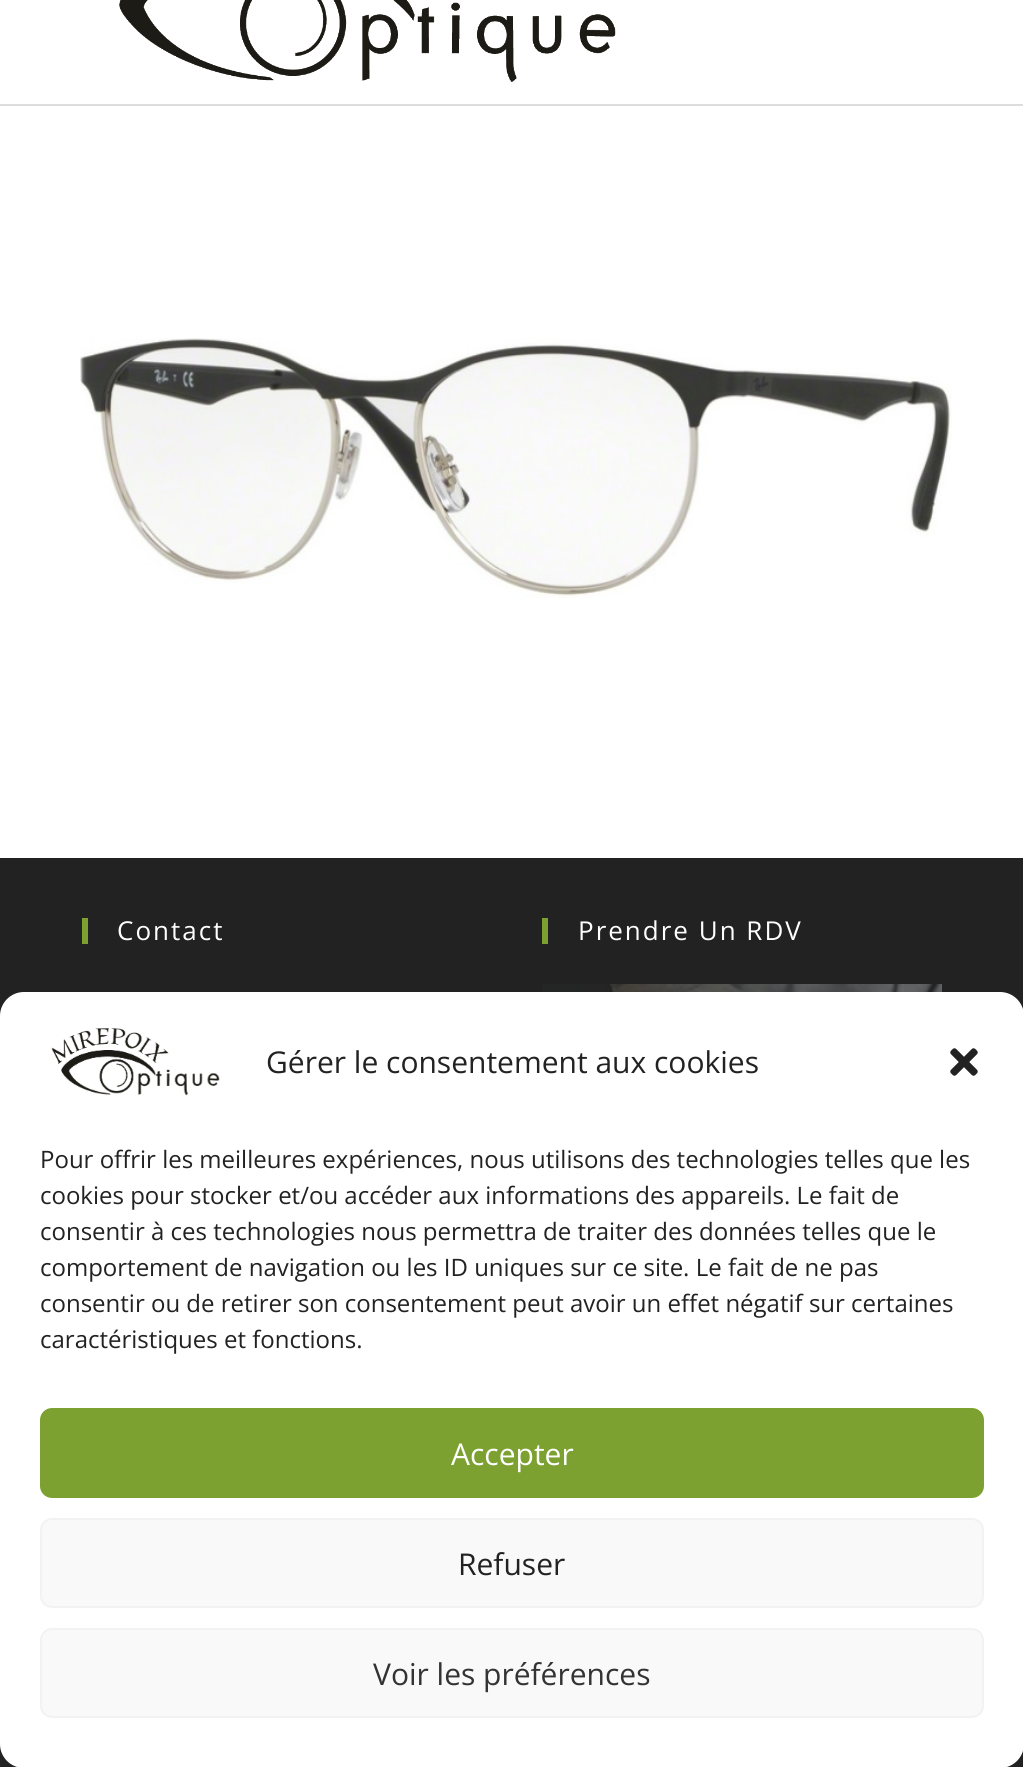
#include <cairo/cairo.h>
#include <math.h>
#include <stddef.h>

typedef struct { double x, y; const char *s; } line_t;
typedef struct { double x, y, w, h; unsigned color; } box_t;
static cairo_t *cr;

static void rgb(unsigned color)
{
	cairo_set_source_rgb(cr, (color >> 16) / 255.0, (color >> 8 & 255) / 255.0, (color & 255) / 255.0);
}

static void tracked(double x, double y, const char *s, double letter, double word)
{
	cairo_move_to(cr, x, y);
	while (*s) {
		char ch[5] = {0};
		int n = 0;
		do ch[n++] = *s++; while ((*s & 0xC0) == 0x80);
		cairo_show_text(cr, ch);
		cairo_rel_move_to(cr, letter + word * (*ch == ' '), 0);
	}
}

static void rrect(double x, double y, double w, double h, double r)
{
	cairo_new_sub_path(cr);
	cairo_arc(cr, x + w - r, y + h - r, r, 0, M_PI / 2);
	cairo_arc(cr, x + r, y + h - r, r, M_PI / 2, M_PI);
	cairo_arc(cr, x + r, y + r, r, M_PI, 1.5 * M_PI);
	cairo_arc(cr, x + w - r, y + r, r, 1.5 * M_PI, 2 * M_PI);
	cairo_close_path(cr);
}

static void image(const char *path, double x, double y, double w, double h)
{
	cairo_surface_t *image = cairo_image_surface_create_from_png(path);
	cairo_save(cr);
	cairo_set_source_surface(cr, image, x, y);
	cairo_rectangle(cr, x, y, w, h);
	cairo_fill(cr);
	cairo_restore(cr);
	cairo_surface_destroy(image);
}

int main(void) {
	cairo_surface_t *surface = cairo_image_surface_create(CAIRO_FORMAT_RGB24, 1023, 1767);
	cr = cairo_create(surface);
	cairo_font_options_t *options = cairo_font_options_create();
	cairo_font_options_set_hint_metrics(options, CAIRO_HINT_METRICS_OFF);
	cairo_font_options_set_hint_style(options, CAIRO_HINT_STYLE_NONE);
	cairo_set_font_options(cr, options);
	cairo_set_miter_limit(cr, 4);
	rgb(0xffffff);
	cairo_paint(cr);
	rgb(0xdddddd);
	cairo_rectangle(cr, 0, 104, 1023, 2);
	cairo_fill(cr);
	image("img/1.png", 119, 0, 497, 82);
	image("img/2.png", 80, 338, 872, 260);
	{
		static const box_t items[] = {
			{0, 858, 1023, 909, 0x222222},
			{82, 918, 6, 26, 0x7ca130},
			{542, 918, 6, 26, 0x7ca130},
		};
		for (size_t i = 0; i < sizeof items / sizeof *items; i++) {
			rgb(items[i].color);
			cairo_rectangle(cr, items[i].x, items[i].y, items[i].w, items[i].h);
			cairo_fill(cr);
		}
	}
	image("img/3.png", 542, 984, 400, 8);
	rgb(0xffffff);
	rrect(0, 992, 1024, 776, 24);
	cairo_fill(cr);
	image("img/4.png", 51, 1028, 169, 68);
	image("img/5.png", 950, 1048, 28, 28);
	rgb(0x7ca130);
	rrect(41, 1409, 942, 88, 11);
	cairo_fill_preserve(cr);
	cairo_stroke(cr);
	rgb(0xf9f9f9);
	rrect(41, 1519, 942, 88, 11);
	cairo_fill_preserve(cr);
	rgb(0xf2f2f2);
	cairo_stroke(cr);
	rgb(0xf9f9f9);
	rrect(41, 1629, 942, 88, 11);
	cairo_fill_preserve(cr);
	rgb(0xf2f2f2);
	cairo_stroke(cr);
	cairo_select_font_face(cr, "Open Sans", CAIRO_FONT_SLANT_NORMAL, CAIRO_FONT_WEIGHT_NORMAL);
	cairo_set_font_size(cr, 26);
	rgb(0xffffff);
	tracked(117, 940, "Contact", 2, 0);
	tracked(578, 940, "Prendre Un RDV", 2, 0);
	cairo_set_font_size(cr, 30);
	rgb(0x222222);
	cairo_move_to(cr, 266, 1073);
	cairo_show_text(cr, "Gérer le consentement aux cookies");
	cairo_set_font_size(cr, 24);
	{
		static const line_t items[] = {
			{40, 1168, "Pour offrir les meilleures expériences, nous utilisons des technologies telles que les"},
			{40, 1204, "cookies pour stocker et/ou accéder aux informations des appareils. Le fait de"},
			{40, 1240, "consentir à ces technologies nous permettra de traiter des données telles que le"},
			{40, 1276, "comportement de navigation ou les ID uniques sur ce site. Le fait de ne pas"},
			{40, 1312, "consentir ou de retirer son consentement peut avoir un effet négatif sur certaines"},
			{40, 1348, "caractéristiques et fonctions."},
		};
		for (size_t i = 0; i < sizeof items / sizeof *items; i++) {
			cairo_move_to(cr, items[i].x, items[i].y);
			cairo_show_text(cr, items[i].s);
		}
	}
	cairo_set_font_size(cr, 30);
	rgb(0xffffff);
	cairo_move_to(cr, 451, 1465);
	cairo_show_text(cr, "Accepter");
	rgb(0x222222);
	cairo_move_to(cr, 458, 1575);
	cairo_show_text(cr, "Refuser");
	rgb(0x333333);
	cairo_move_to(cr, 373, 1685);
	cairo_show_text(cr, "Voir les préférences");
	cairo_surface_write_to_png(surface, "page.png");
	cairo_font_options_destroy(options);
	cairo_destroy(cr);
	cairo_surface_destroy(surface);
	return 0;
}
